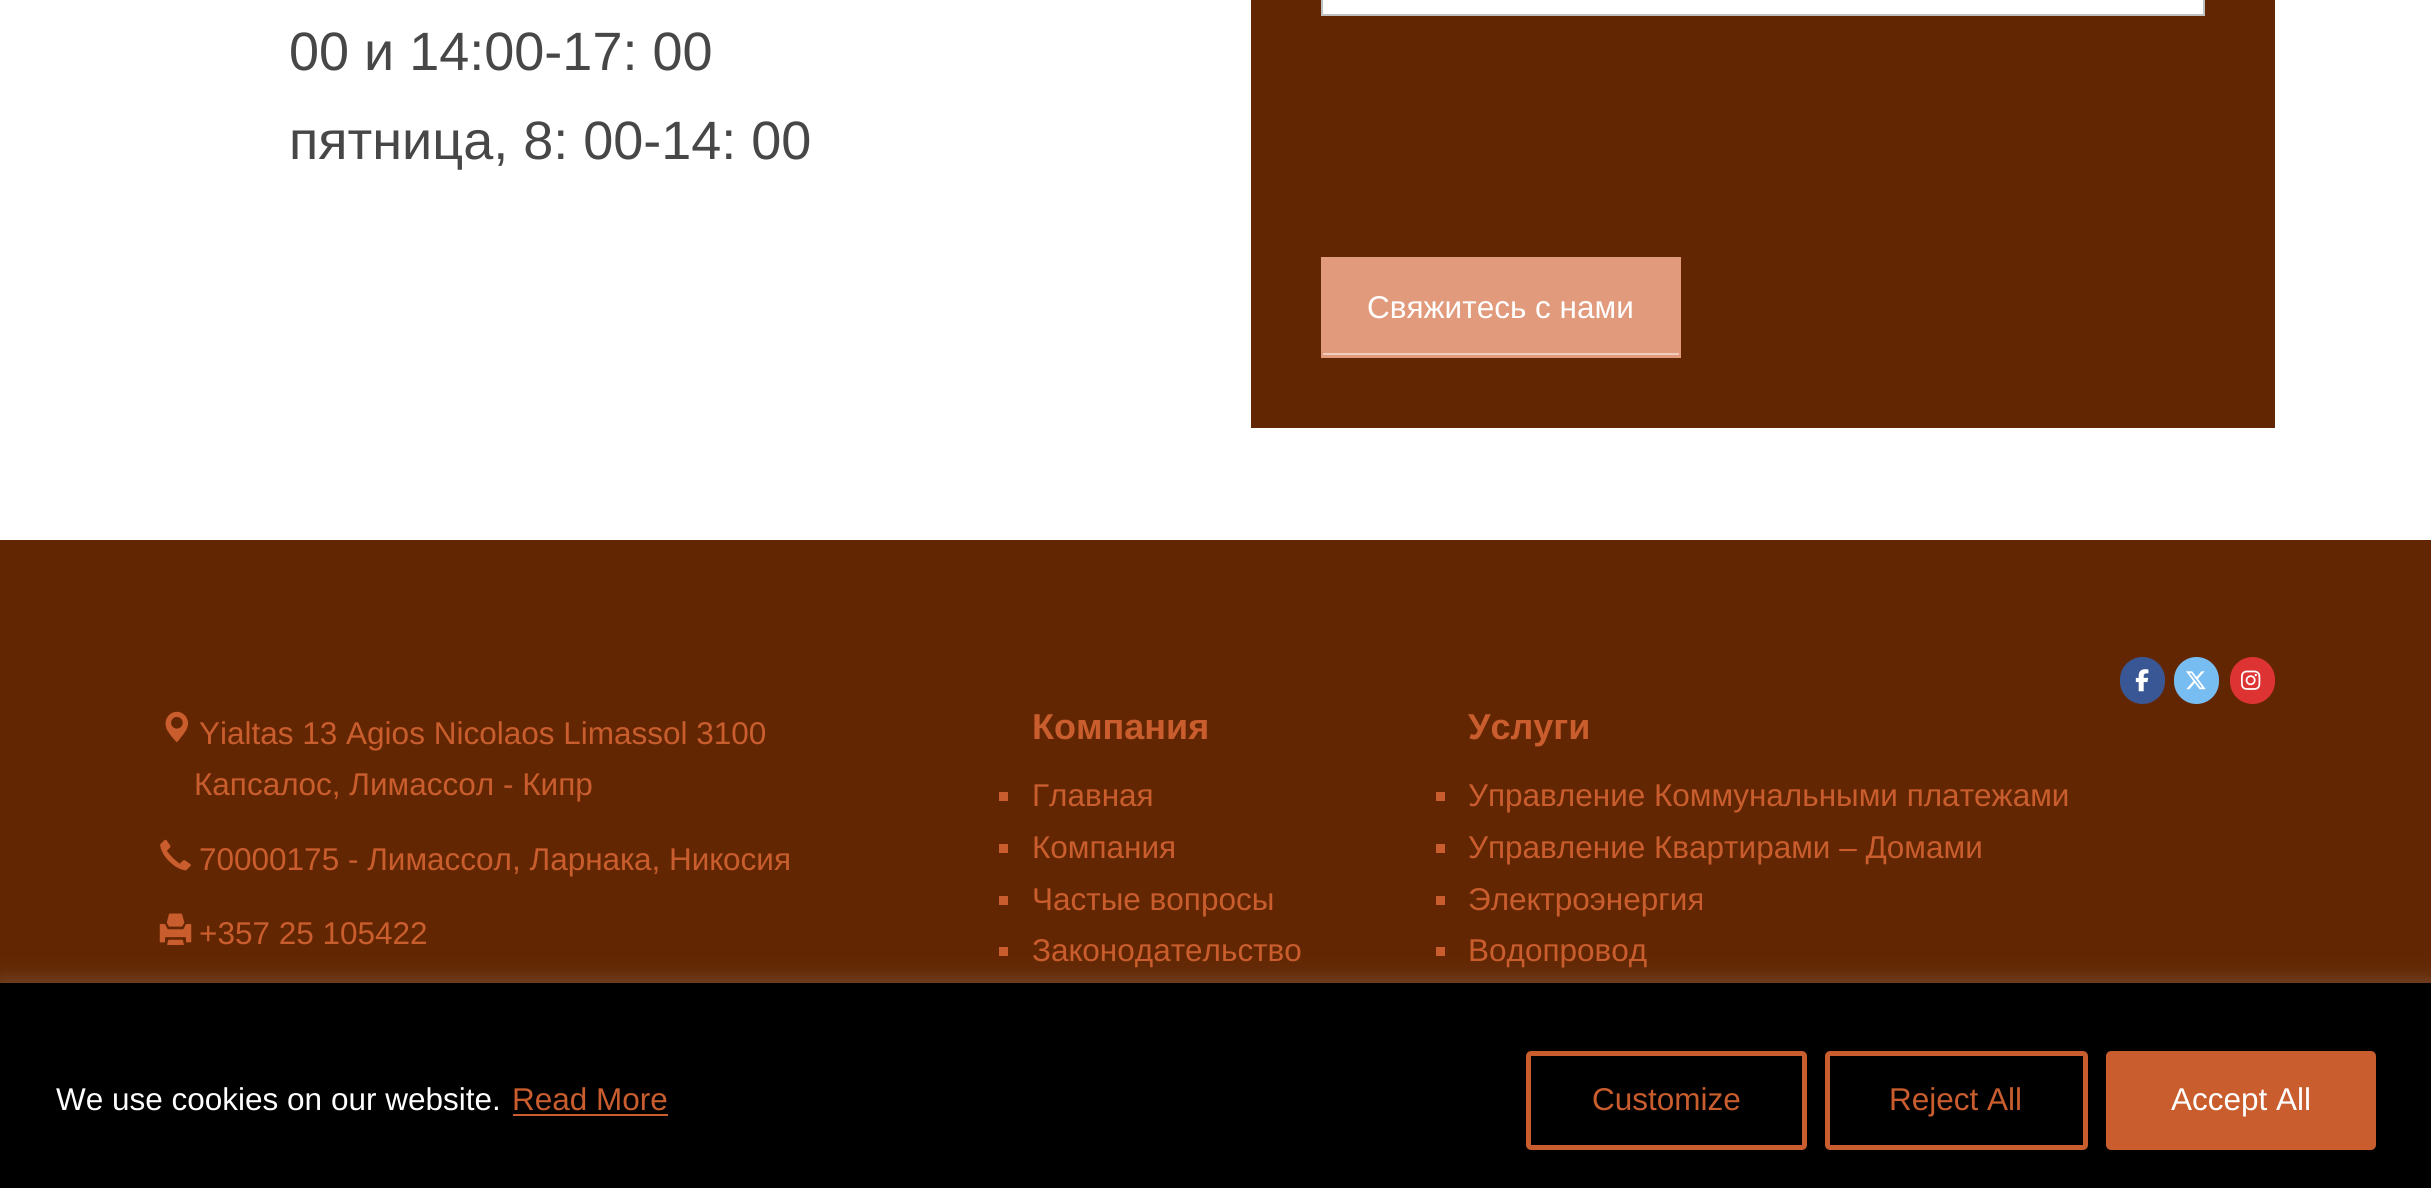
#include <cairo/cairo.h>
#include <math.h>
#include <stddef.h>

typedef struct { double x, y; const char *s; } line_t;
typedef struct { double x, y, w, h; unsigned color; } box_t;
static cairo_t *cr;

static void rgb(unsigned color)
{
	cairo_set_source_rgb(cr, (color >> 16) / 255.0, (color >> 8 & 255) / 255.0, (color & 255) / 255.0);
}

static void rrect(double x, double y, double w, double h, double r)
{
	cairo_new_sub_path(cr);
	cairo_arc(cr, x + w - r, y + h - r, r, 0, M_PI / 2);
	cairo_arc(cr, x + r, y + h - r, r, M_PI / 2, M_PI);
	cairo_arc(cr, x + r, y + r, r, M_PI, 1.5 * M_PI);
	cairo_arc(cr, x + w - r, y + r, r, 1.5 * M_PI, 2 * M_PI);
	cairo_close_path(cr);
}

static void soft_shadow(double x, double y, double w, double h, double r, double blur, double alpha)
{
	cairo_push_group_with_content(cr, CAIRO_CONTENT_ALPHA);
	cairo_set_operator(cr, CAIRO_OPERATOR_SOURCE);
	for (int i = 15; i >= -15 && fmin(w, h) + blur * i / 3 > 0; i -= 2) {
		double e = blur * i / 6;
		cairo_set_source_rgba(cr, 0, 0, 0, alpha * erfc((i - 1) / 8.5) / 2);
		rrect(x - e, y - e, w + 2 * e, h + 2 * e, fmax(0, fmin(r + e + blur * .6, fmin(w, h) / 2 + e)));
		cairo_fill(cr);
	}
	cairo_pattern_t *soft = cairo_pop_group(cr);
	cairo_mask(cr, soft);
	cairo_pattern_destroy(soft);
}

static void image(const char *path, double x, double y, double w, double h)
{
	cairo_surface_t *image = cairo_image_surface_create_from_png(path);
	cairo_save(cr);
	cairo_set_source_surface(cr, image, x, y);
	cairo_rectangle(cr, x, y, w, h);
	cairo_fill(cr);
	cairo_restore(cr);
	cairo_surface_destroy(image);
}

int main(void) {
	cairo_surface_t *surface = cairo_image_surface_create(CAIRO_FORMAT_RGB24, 2431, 1188);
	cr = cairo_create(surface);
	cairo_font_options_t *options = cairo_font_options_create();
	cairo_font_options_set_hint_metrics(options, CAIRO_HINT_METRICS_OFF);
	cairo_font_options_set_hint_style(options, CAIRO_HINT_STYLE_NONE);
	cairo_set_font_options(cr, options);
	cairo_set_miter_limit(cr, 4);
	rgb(0xffffff);
	cairo_paint(cr);
	rgb(0x622602);
	cairo_rectangle(cr, 1251, 0, 1024, 428);
	cairo_fill(cr);
	rgb(0xffffff);
	cairo_rectangle(cr, 1322, -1, 882, 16);
	cairo_fill_preserve(cr);
	rgb(0xc0c0c0);
	cairo_stroke(cr);
	{
		static const box_t items[] = {
			{1321, 257, 360, 101, 0xe19a7b},
			{1323, 353, 356, 2, 0xf0cdbd},
			{0, 540, 2431, 443, 0x622602},
		};
		for (size_t i = 0; i < sizeof items / sizeof *items; i++) {
			rgb(items[i].color);
			cairo_rectangle(cr, items[i].x, items[i].y, items[i].w, items[i].h);
			cairo_fill(cr);
		}
	}
	rgb(0x3a5795);
	rrect(2121, 658, 43, 45, 21.5);
	cairo_fill_preserve(cr);
	cairo_stroke(cr);
	image("img/1.png", 2135, 669, 14, 23);
	rgb(0x78bdf1);
	rrect(2175, 658, 43, 45, 21.5);
	cairo_fill_preserve(cr);
	cairo_stroke(cr);
	image("img/2.png", 2186, 671, 20, 19);
	rgb(0xdd3333);
	rrect(2231, 658, 43, 45, 21.5);
	cairo_fill_preserve(cr);
	cairo_stroke(cr);
	image("img/3.png", 2241, 670, 20, 20);
	image("img/4.png", 165, 711, 23, 32);
	image("img/5.png", 160, 839, 31, 32);
	image("img/6.png", 159, 913, 33, 32);
	{
		static const box_t items[] = {
			{999, 792, 9, 9, 0xc95d2d},
			{999, 844, 9, 9, 0xc95d2d},
			{999, 896, 9, 9, 0xc95d2d},
			{999, 947, 9, 9, 0xc95d2d},
			{1436, 792, 9, 9, 0xc95d2d},
			{1436, 844, 9, 9, 0xc95d2d},
			{1436, 896, 9, 9, 0xc95d2d},
			{1436, 947, 9, 9, 0xc95d2d},
		};
		for (size_t i = 0; i < sizeof items / sizeof *items; i++) {
			rgb(items[i].color);
			cairo_rectangle(cr, items[i].x, items[i].y, items[i].w, items[i].h);
			cairo_fill(cr);
		}
	}
	rgb(0xacabab);
	soft_shadow(0, 981, 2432, 205, 0, 11, 0.3);
	rgb(0x000000);
	cairo_rectangle(cr, 0, 983, 2431, 205);
	cairo_fill(cr);
	rgb(0xc95d2d);
	cairo_rectangle(cr, 513, 1114, 155, 2);
	cairo_fill(cr);
	rrect(1528.5, 1053.5, 276, 94, 2.5);
	cairo_set_line_width(cr, 5);
	cairo_stroke(cr);
	rrect(1827.5, 1053.5, 258, 94, 2.5);
	cairo_stroke(cr);
	rrect(2108.5, 1053.5, 265, 94, 2.5);
	cairo_fill_preserve(cr);
	cairo_stroke(cr);
	cairo_select_font_face(cr, "Liberation Sans", CAIRO_FONT_SLANT_NORMAL, CAIRO_FONT_WEIGHT_NORMAL);
	cairo_set_font_size(cr, 54);
	rgb(0x474747);
	cairo_move_to(cr, 289, 70);
	cairo_show_text(cr, "00 и 14:00-17: 00");
	cairo_move_to(cr, 289, 159);
	cairo_show_text(cr, "пятница, 8: 00-14: 00");
	cairo_set_font_size(cr, 31.5);
	rgb(0xffffff);
	cairo_move_to(cr, 1367, 318);
	cairo_show_text(cr, "Свяжитесь с нами");
	rgb(0xc95d2d);
	{
		static const line_t items[] = {
			{199, 744, "Yialtas 13 Agios Nicolaos Limassol 3100"},
			{194, 795, "Капсалос, Лимассол - Кипр"},
			{199, 870, "70000175 - Лимассол, Ларнака, Никосия"},
			{199, 944, "+357 25 105422"},
		};
		for (size_t i = 0; i < sizeof items / sizeof *items; i++) {
			cairo_move_to(cr, items[i].x, items[i].y);
			cairo_show_text(cr, items[i].s);
		}
	}
	cairo_select_font_face(cr, "Liberation Sans", CAIRO_FONT_SLANT_NORMAL, CAIRO_FONT_WEIGHT_BOLD);
	cairo_set_font_size(cr, 36);
	cairo_move_to(cr, 1032, 739);
	cairo_show_text(cr, "Компания");
	cairo_select_font_face(cr, "Liberation Sans", CAIRO_FONT_SLANT_NORMAL, CAIRO_FONT_WEIGHT_NORMAL);
	cairo_set_font_size(cr, 31.5);
	{
		static const line_t items[] = {
			{1032, 806, "Главная"},
			{1032, 858, "Компания"},
			{1032, 910, "Частые вопросы"},
			{1032, 961, "Законодательство"},
		};
		for (size_t i = 0; i < sizeof items / sizeof *items; i++) {
			cairo_move_to(cr, items[i].x, items[i].y);
			cairo_show_text(cr, items[i].s);
		}
	}
	cairo_select_font_face(cr, "Liberation Sans", CAIRO_FONT_SLANT_NORMAL, CAIRO_FONT_WEIGHT_BOLD);
	cairo_set_font_size(cr, 36);
	cairo_move_to(cr, 1468, 739);
	cairo_show_text(cr, "Услуги");
	cairo_select_font_face(cr, "Liberation Sans", CAIRO_FONT_SLANT_NORMAL, CAIRO_FONT_WEIGHT_NORMAL);
	cairo_set_font_size(cr, 31.5);
	{
		static const line_t items[] = {
			{1468, 806, "Управление Коммунальными платежами"},
			{1468, 858, "Управление Квартирами – Домами"},
			{1468, 910, "Электроэнергия"},
			{1468, 961, "Водопровод"},
		};
		for (size_t i = 0; i < sizeof items / sizeof *items; i++) {
			cairo_move_to(cr, items[i].x, items[i].y);
			cairo_show_text(cr, items[i].s);
		}
	}
	rgb(0xffffff);
	cairo_move_to(cr, 56, 1110);
	cairo_show_text(cr, "We use cookies on our website.");
	rgb(0xc95d2d);
	{
		static const line_t items[] = {
			{512, 1110, "Read More"},
			{1592, 1110, "Customize"},
			{1889, 1110, "Reject All"},
		};
		for (size_t i = 0; i < sizeof items / sizeof *items; i++) {
			cairo_move_to(cr, items[i].x, items[i].y);
			cairo_show_text(cr, items[i].s);
		}
	}
	rgb(0xffffff);
	cairo_move_to(cr, 2171, 1110);
	cairo_show_text(cr, "Accept All");
	cairo_surface_write_to_png(surface, "page.png");
	cairo_font_options_destroy(options);
	cairo_destroy(cr);
	cairo_surface_destroy(surface);
	return 0;
}
